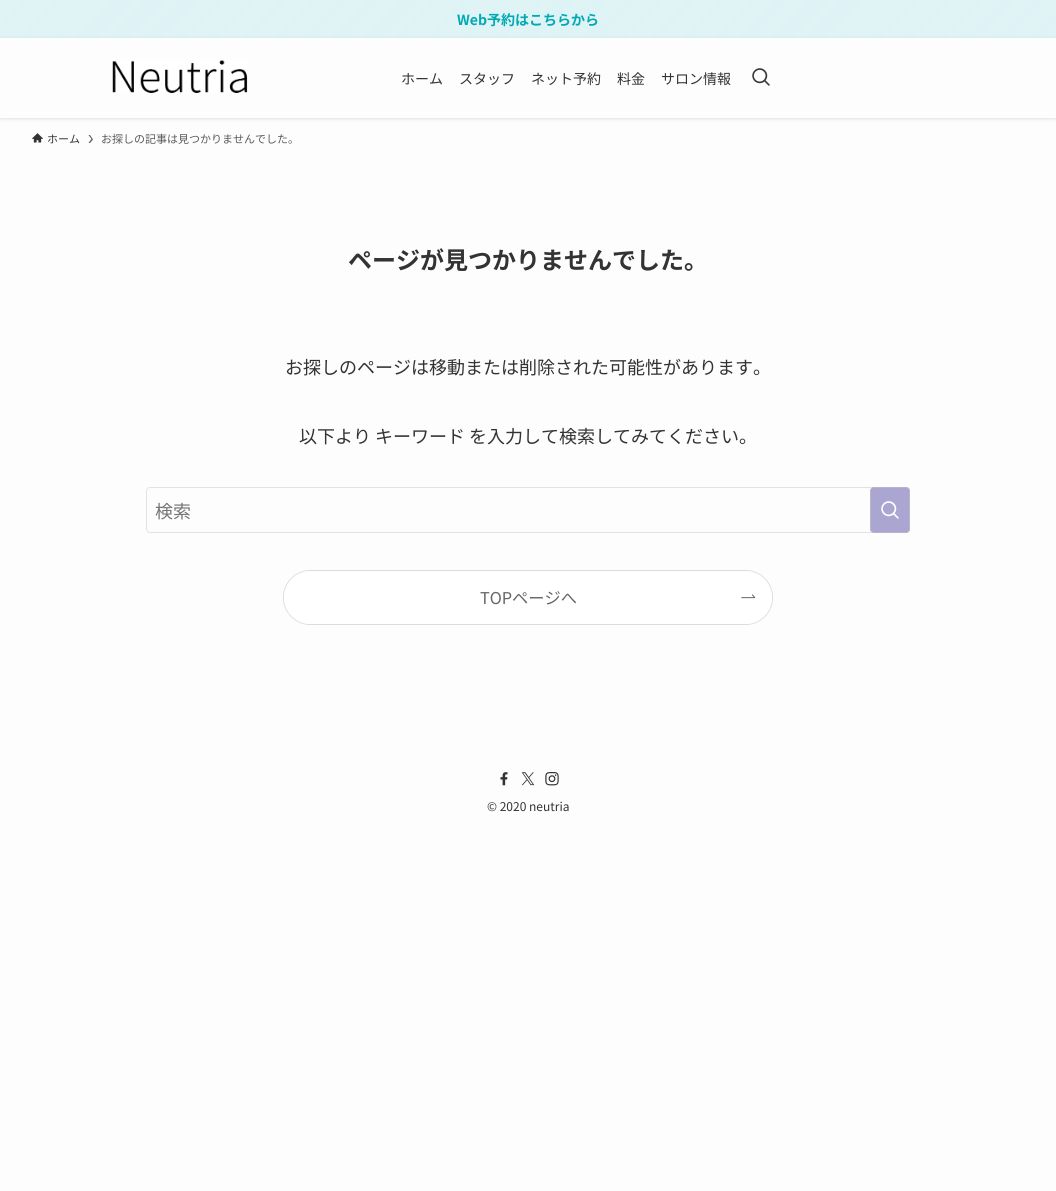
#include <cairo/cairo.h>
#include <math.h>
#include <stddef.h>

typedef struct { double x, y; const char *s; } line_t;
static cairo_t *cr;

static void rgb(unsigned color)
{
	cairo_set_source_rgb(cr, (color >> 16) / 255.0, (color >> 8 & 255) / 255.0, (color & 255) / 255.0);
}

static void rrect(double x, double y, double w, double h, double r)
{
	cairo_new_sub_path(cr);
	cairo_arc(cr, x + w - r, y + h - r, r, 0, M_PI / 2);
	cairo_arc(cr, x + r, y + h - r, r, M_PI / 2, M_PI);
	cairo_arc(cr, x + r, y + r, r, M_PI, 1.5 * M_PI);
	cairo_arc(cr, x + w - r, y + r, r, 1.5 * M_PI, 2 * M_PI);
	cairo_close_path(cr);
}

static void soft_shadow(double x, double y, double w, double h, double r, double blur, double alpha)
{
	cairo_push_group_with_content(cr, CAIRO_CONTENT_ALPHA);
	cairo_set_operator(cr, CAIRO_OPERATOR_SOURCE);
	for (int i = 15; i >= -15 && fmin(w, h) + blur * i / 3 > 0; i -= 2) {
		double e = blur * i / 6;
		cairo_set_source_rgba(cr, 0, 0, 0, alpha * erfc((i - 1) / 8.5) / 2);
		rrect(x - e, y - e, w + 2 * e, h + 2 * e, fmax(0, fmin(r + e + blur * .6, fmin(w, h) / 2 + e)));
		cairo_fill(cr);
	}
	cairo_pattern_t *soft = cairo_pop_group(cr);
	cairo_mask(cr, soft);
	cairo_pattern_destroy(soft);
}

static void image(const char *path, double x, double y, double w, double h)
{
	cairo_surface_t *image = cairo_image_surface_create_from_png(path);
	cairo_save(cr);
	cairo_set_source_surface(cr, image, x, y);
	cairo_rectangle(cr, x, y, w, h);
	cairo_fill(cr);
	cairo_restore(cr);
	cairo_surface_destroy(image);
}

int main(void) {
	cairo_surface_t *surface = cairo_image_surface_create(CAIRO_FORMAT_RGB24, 1056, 1191);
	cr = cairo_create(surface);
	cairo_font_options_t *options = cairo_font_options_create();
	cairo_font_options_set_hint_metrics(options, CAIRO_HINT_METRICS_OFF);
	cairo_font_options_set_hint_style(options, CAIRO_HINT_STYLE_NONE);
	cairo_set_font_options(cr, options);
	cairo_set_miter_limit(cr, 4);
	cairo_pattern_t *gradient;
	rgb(0xfdfdfd);
	cairo_paint(cr);
	gradient = cairo_pattern_create_linear(802, 293, 250, -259);
	cairo_pattern_add_color_stop_rgba(gradient, 0, 0.878, 0.957, 0.965, 1);
	cairo_pattern_add_color_stop_rgba(gradient, 0.01, 0.878, 0.957, 0.965, 1);
	cairo_pattern_add_color_stop_rgba(gradient, 0.01, 0.867, 0.953, 0.961, 1);
	cairo_pattern_add_color_stop_rgba(gradient, 0.02, 0.867, 0.953, 0.961, 1);
	cairo_pattern_add_color_stop_rgba(gradient, 0.02, 0.878, 0.957, 0.965, 1);
	cairo_pattern_add_color_stop_rgba(gradient, 0.02, 0.867, 0.953, 0.961, 1);
	cairo_pattern_add_color_stop_rgba(gradient, 0.03, 0.867, 0.953, 0.961, 1);
	cairo_pattern_add_color_stop_rgba(gradient, 0.03, 0.878, 0.957, 0.965, 1);
	cairo_pattern_add_color_stop_rgba(gradient, 0.04, 0.878, 0.957, 0.965, 1);
	cairo_pattern_add_color_stop_rgba(gradient, 0.04, 0.867, 0.953, 0.961, 1);
	cairo_pattern_add_color_stop_rgba(gradient, 0.05, 0.867, 0.953, 0.961, 1);
	cairo_pattern_add_color_stop_rgba(gradient, 0.05, 0.878, 0.957, 0.965, 1);
	cairo_pattern_add_color_stop_rgba(gradient, 0.05, 0.867, 0.953, 0.961, 1);
	cairo_pattern_add_color_stop_rgba(gradient, 0.06, 0.867, 0.953, 0.961, 1);
	cairo_pattern_add_color_stop_rgba(gradient, 0.06, 0.878, 0.957, 0.965, 1);
	cairo_pattern_add_color_stop_rgba(gradient, 0.07, 0.878, 0.957, 0.965, 1);
	cairo_pattern_add_color_stop_rgba(gradient, 0.07, 0.867, 0.953, 0.961, 1);
	cairo_pattern_add_color_stop_rgba(gradient, 0.08, 0.867, 0.953, 0.961, 1);
	cairo_pattern_add_color_stop_rgba(gradient, 0.08, 0.878, 0.957, 0.965, 1);
	cairo_pattern_add_color_stop_rgba(gradient, 0.08, 0.867, 0.953, 0.961, 1);
	cairo_pattern_add_color_stop_rgba(gradient, 0.09, 0.867, 0.953, 0.961, 1);
	cairo_pattern_add_color_stop_rgba(gradient, 0.09, 0.878, 0.957, 0.965, 1);
	cairo_pattern_add_color_stop_rgba(gradient, 0.1, 0.878, 0.957, 0.965, 1);
	cairo_pattern_add_color_stop_rgba(gradient, 0.1, 0.867, 0.953, 0.961, 1);
	cairo_pattern_add_color_stop_rgba(gradient, 0.11, 0.867, 0.953, 0.961, 1);
	cairo_pattern_add_color_stop_rgba(gradient, 0.11, 0.878, 0.957, 0.965, 1);
	cairo_pattern_add_color_stop_rgba(gradient, 0.12, 0.878, 0.957, 0.965, 1);
	cairo_pattern_add_color_stop_rgba(gradient, 0.12, 0.867, 0.953, 0.961, 1);
	cairo_pattern_add_color_stop_rgba(gradient, 0.12, 0.878, 0.957, 0.965, 1);
	cairo_pattern_add_color_stop_rgba(gradient, 0.13, 0.878, 0.957, 0.965, 1);
	cairo_pattern_add_color_stop_rgba(gradient, 0.13, 0.867, 0.953, 0.961, 1);
	cairo_pattern_add_color_stop_rgba(gradient, 0.14, 0.867, 0.953, 0.961, 1);
	cairo_pattern_add_color_stop_rgba(gradient, 0.14, 0.878, 0.957, 0.965, 1);
	cairo_pattern_add_color_stop_rgba(gradient, 0.15, 0.878, 0.957, 0.965, 1);
	cairo_pattern_add_color_stop_rgba(gradient, 0.15, 0.867, 0.953, 0.961, 1);
	cairo_pattern_add_color_stop_rgba(gradient, 0.15, 0.878, 0.957, 0.965, 1);
	cairo_pattern_add_color_stop_rgba(gradient, 0.16, 0.878, 0.957, 0.965, 1);
	cairo_pattern_add_color_stop_rgba(gradient, 0.16, 0.867, 0.953, 0.961, 1);
	cairo_pattern_add_color_stop_rgba(gradient, 0.17, 0.867, 0.953, 0.961, 1);
	cairo_pattern_add_color_stop_rgba(gradient, 0.17, 0.878, 0.957, 0.965, 1);
	cairo_pattern_add_color_stop_rgba(gradient, 0.18, 0.878, 0.957, 0.965, 1);
	cairo_pattern_add_color_stop_rgba(gradient, 0.18, 0.867, 0.953, 0.961, 1);
	cairo_pattern_add_color_stop_rgba(gradient, 0.18, 0.878, 0.957, 0.965, 1);
	cairo_pattern_add_color_stop_rgba(gradient, 0.19, 0.878, 0.957, 0.965, 1);
	cairo_pattern_add_color_stop_rgba(gradient, 0.19, 0.867, 0.953, 0.961, 1);
	cairo_pattern_add_color_stop_rgba(gradient, 0.2, 0.867, 0.953, 0.961, 1);
	cairo_pattern_add_color_stop_rgba(gradient, 0.2, 0.878, 0.957, 0.965, 1);
	cairo_pattern_add_color_stop_rgba(gradient, 0.21, 0.878, 0.957, 0.965, 1);
	cairo_pattern_add_color_stop_rgba(gradient, 0.21, 0.867, 0.953, 0.961, 1);
	cairo_pattern_add_color_stop_rgba(gradient, 0.22, 0.867, 0.953, 0.961, 1);
	cairo_pattern_add_color_stop_rgba(gradient, 0.22, 0.878, 0.957, 0.965, 1);
	cairo_pattern_add_color_stop_rgba(gradient, 0.22, 0.867, 0.953, 0.961, 1);
	cairo_pattern_add_color_stop_rgba(gradient, 0.23, 0.867, 0.953, 0.961, 1);
	cairo_pattern_add_color_stop_rgba(gradient, 0.23, 0.878, 0.957, 0.965, 1);
	cairo_pattern_add_color_stop_rgba(gradient, 0.24, 0.878, 0.957, 0.965, 1);
	cairo_pattern_add_color_stop_rgba(gradient, 0.24, 0.867, 0.953, 0.961, 1);
	cairo_pattern_add_color_stop_rgba(gradient, 0.25, 0.867, 0.953, 0.961, 1);
	cairo_pattern_add_color_stop_rgba(gradient, 0.25, 0.878, 0.957, 0.965, 1);
	cairo_pattern_add_color_stop_rgba(gradient, 0.25, 0.867, 0.953, 0.961, 1);
	cairo_pattern_add_color_stop_rgba(gradient, 0.26, 0.867, 0.953, 0.961, 1);
	cairo_pattern_add_color_stop_rgba(gradient, 0.26, 0.878, 0.957, 0.965, 1);
	cairo_pattern_add_color_stop_rgba(gradient, 0.27, 0.878, 0.957, 0.965, 1);
	cairo_pattern_add_color_stop_rgba(gradient, 0.27, 0.867, 0.953, 0.961, 1);
	cairo_pattern_add_color_stop_rgba(gradient, 0.28, 0.867, 0.953, 0.961, 1);
	cairo_pattern_add_color_stop_rgba(gradient, 0.28, 0.878, 0.957, 0.965, 1);
	cairo_pattern_add_color_stop_rgba(gradient, 0.28, 0.867, 0.953, 0.961, 1);
	cairo_pattern_add_color_stop_rgba(gradient, 0.29, 0.867, 0.953, 0.961, 1);
	cairo_pattern_add_color_stop_rgba(gradient, 0.29, 0.878, 0.957, 0.965, 1);
	cairo_pattern_add_color_stop_rgba(gradient, 0.3, 0.878, 0.957, 0.965, 1);
	cairo_pattern_add_color_stop_rgba(gradient, 0.3, 0.867, 0.953, 0.961, 1);
	cairo_pattern_add_color_stop_rgba(gradient, 0.31, 0.867, 0.953, 0.961, 1);
	cairo_pattern_add_color_stop_rgba(gradient, 0.31, 0.878, 0.957, 0.965, 1);
	cairo_pattern_add_color_stop_rgba(gradient, 0.32, 0.878, 0.957, 0.965, 1);
	cairo_pattern_add_color_stop_rgba(gradient, 0.32, 0.867, 0.953, 0.961, 1);
	cairo_pattern_add_color_stop_rgba(gradient, 0.32, 0.878, 0.957, 0.965, 1);
	cairo_pattern_add_color_stop_rgba(gradient, 0.33, 0.878, 0.957, 0.965, 1);
	cairo_pattern_add_color_stop_rgba(gradient, 0.33, 0.867, 0.953, 0.961, 1);
	cairo_pattern_add_color_stop_rgba(gradient, 0.34, 0.867, 0.953, 0.961, 1);
	cairo_pattern_add_color_stop_rgba(gradient, 0.34, 0.878, 0.957, 0.965, 1);
	cairo_pattern_add_color_stop_rgba(gradient, 0.35, 0.878, 0.957, 0.965, 1);
	cairo_pattern_add_color_stop_rgba(gradient, 0.35, 0.867, 0.953, 0.961, 1);
	cairo_pattern_add_color_stop_rgba(gradient, 0.35, 0.878, 0.957, 0.965, 1);
	cairo_pattern_add_color_stop_rgba(gradient, 0.36, 0.878, 0.957, 0.965, 1);
	cairo_pattern_add_color_stop_rgba(gradient, 0.36, 0.867, 0.953, 0.961, 1);
	cairo_pattern_add_color_stop_rgba(gradient, 0.37, 0.867, 0.953, 0.961, 1);
	cairo_pattern_add_color_stop_rgba(gradient, 0.37, 0.878, 0.957, 0.965, 1);
	cairo_pattern_add_color_stop_rgba(gradient, 0.38, 0.878, 0.957, 0.965, 1);
	cairo_pattern_add_color_stop_rgba(gradient, 0.38, 0.867, 0.953, 0.961, 1);
	cairo_pattern_add_color_stop_rgba(gradient, 0.38, 0.878, 0.957, 0.965, 1);
	cairo_pattern_add_color_stop_rgba(gradient, 0.39, 0.878, 0.957, 0.965, 1);
	cairo_pattern_add_color_stop_rgba(gradient, 0.39, 0.867, 0.953, 0.961, 1);
	cairo_pattern_add_color_stop_rgba(gradient, 0.4, 0.867, 0.953, 0.961, 1);
	cairo_pattern_add_color_stop_rgba(gradient, 0.4, 0.878, 0.957, 0.965, 1);
	cairo_pattern_add_color_stop_rgba(gradient, 0.41, 0.878, 0.957, 0.965, 1);
	cairo_pattern_add_color_stop_rgba(gradient, 0.41, 0.867, 0.953, 0.961, 1);
	cairo_pattern_add_color_stop_rgba(gradient, 0.42, 0.867, 0.953, 0.961, 1);
	cairo_pattern_add_color_stop_rgba(gradient, 0.42, 0.878, 0.957, 0.965, 1);
	cairo_pattern_add_color_stop_rgba(gradient, 0.42, 0.867, 0.953, 0.961, 1);
	cairo_pattern_add_color_stop_rgba(gradient, 0.43, 0.867, 0.953, 0.961, 1);
	cairo_pattern_add_color_stop_rgba(gradient, 0.43, 0.878, 0.957, 0.965, 1);
	cairo_pattern_add_color_stop_rgba(gradient, 0.44, 0.878, 0.957, 0.965, 1);
	cairo_pattern_add_color_stop_rgba(gradient, 0.44, 0.867, 0.953, 0.961, 1);
	cairo_pattern_add_color_stop_rgba(gradient, 0.45, 0.867, 0.953, 0.961, 1);
	cairo_pattern_add_color_stop_rgba(gradient, 0.45, 0.878, 0.957, 0.965, 1);
	cairo_pattern_add_color_stop_rgba(gradient, 0.45, 0.867, 0.953, 0.961, 1);
	cairo_pattern_add_color_stop_rgba(gradient, 0.46, 0.867, 0.953, 0.961, 1);
	cairo_pattern_add_color_stop_rgba(gradient, 0.46, 0.878, 0.957, 0.965, 1);
	cairo_pattern_add_color_stop_rgba(gradient, 0.47, 0.878, 0.957, 0.965, 1);
	cairo_pattern_add_color_stop_rgba(gradient, 0.47, 0.867, 0.953, 0.961, 1);
	cairo_pattern_add_color_stop_rgba(gradient, 0.48, 0.867, 0.953, 0.961, 1);
	cairo_pattern_add_color_stop_rgba(gradient, 0.48, 0.878, 0.957, 0.965, 1);
	cairo_pattern_add_color_stop_rgba(gradient, 0.48, 0.867, 0.953, 0.961, 1);
	cairo_pattern_add_color_stop_rgba(gradient, 0.49, 0.867, 0.953, 0.961, 1);
	cairo_pattern_add_color_stop_rgba(gradient, 0.49, 0.878, 0.957, 0.965, 1);
	cairo_pattern_add_color_stop_rgba(gradient, 0.5, 0.878, 0.957, 0.965, 1);
	cairo_pattern_add_color_stop_rgba(gradient, 0.5, 0.867, 0.953, 0.961, 1);
	cairo_pattern_add_color_stop_rgba(gradient, 0.51, 0.867, 0.953, 0.961, 1);
	cairo_pattern_add_color_stop_rgba(gradient, 0.51, 0.878, 0.957, 0.965, 1);
	cairo_pattern_add_color_stop_rgba(gradient, 0.52, 0.878, 0.957, 0.965, 1);
	cairo_pattern_add_color_stop_rgba(gradient, 0.52, 0.867, 0.953, 0.961, 1);
	cairo_pattern_add_color_stop_rgba(gradient, 0.52, 0.878, 0.957, 0.965, 1);
	cairo_pattern_add_color_stop_rgba(gradient, 0.53, 0.878, 0.957, 0.965, 1);
	cairo_pattern_add_color_stop_rgba(gradient, 0.53, 0.867, 0.953, 0.961, 1);
	cairo_pattern_add_color_stop_rgba(gradient, 0.54, 0.867, 0.953, 0.961, 1);
	cairo_pattern_add_color_stop_rgba(gradient, 0.54, 0.878, 0.957, 0.965, 1);
	cairo_pattern_add_color_stop_rgba(gradient, 0.55, 0.878, 0.957, 0.965, 1);
	cairo_pattern_add_color_stop_rgba(gradient, 0.55, 0.867, 0.953, 0.961, 1);
	cairo_pattern_add_color_stop_rgba(gradient, 0.55, 0.878, 0.957, 0.965, 1);
	cairo_pattern_add_color_stop_rgba(gradient, 0.56, 0.878, 0.957, 0.965, 1);
	cairo_pattern_add_color_stop_rgba(gradient, 0.56, 0.867, 0.953, 0.961, 1);
	cairo_pattern_add_color_stop_rgba(gradient, 0.57, 0.867, 0.953, 0.961, 1);
	cairo_pattern_add_color_stop_rgba(gradient, 0.57, 0.878, 0.957, 0.965, 1);
	cairo_pattern_add_color_stop_rgba(gradient, 0.58, 0.878, 0.957, 0.965, 1);
	cairo_pattern_add_color_stop_rgba(gradient, 0.58, 0.867, 0.953, 0.961, 1);
	cairo_pattern_add_color_stop_rgba(gradient, 0.58, 0.878, 0.957, 0.965, 1);
	cairo_pattern_add_color_stop_rgba(gradient, 0.59, 0.878, 0.957, 0.965, 1);
	cairo_pattern_add_color_stop_rgba(gradient, 0.59, 0.867, 0.953, 0.961, 1);
	cairo_pattern_add_color_stop_rgba(gradient, 0.6, 0.867, 0.953, 0.961, 1);
	cairo_pattern_add_color_stop_rgba(gradient, 0.6, 0.878, 0.957, 0.965, 1);
	cairo_pattern_add_color_stop_rgba(gradient, 0.61, 0.878, 0.957, 0.965, 1);
	cairo_pattern_add_color_stop_rgba(gradient, 0.61, 0.867, 0.953, 0.961, 1);
	cairo_pattern_add_color_stop_rgba(gradient, 0.62, 0.867, 0.953, 0.961, 1);
	cairo_pattern_add_color_stop_rgba(gradient, 0.62, 0.878, 0.957, 0.965, 1);
	cairo_pattern_add_color_stop_rgba(gradient, 0.62, 0.867, 0.953, 0.961, 1);
	cairo_pattern_add_color_stop_rgba(gradient, 0.63, 0.867, 0.953, 0.961, 1);
	cairo_pattern_add_color_stop_rgba(gradient, 0.63, 0.878, 0.957, 0.965, 1);
	cairo_pattern_add_color_stop_rgba(gradient, 0.64, 0.878, 0.957, 0.965, 1);
	cairo_pattern_add_color_stop_rgba(gradient, 0.64, 0.867, 0.953, 0.961, 1);
	cairo_pattern_add_color_stop_rgba(gradient, 0.65, 0.867, 0.953, 0.961, 1);
	cairo_pattern_add_color_stop_rgba(gradient, 0.65, 0.878, 0.957, 0.965, 1);
	cairo_pattern_add_color_stop_rgba(gradient, 0.65, 0.867, 0.953, 0.961, 1);
	cairo_pattern_add_color_stop_rgba(gradient, 0.66, 0.867, 0.953, 0.961, 1);
	cairo_pattern_add_color_stop_rgba(gradient, 0.66, 0.878, 0.957, 0.965, 1);
	cairo_pattern_add_color_stop_rgba(gradient, 0.67, 0.878, 0.957, 0.965, 1);
	cairo_pattern_add_color_stop_rgba(gradient, 0.67, 0.867, 0.953, 0.961, 1);
	cairo_pattern_add_color_stop_rgba(gradient, 0.68, 0.867, 0.953, 0.961, 1);
	cairo_pattern_add_color_stop_rgba(gradient, 0.68, 0.878, 0.957, 0.965, 1);
	cairo_pattern_add_color_stop_rgba(gradient, 0.68, 0.867, 0.953, 0.961, 1);
	cairo_pattern_add_color_stop_rgba(gradient, 0.69, 0.867, 0.953, 0.961, 1);
	cairo_pattern_add_color_stop_rgba(gradient, 0.69, 0.878, 0.957, 0.965, 1);
	cairo_pattern_add_color_stop_rgba(gradient, 0.7, 0.878, 0.957, 0.965, 1);
	cairo_pattern_add_color_stop_rgba(gradient, 0.7, 0.867, 0.953, 0.961, 1);
	cairo_pattern_add_color_stop_rgba(gradient, 0.71, 0.867, 0.953, 0.961, 1);
	cairo_pattern_add_color_stop_rgba(gradient, 0.71, 0.878, 0.957, 0.965, 1);
	cairo_pattern_add_color_stop_rgba(gradient, 0.72, 0.878, 0.957, 0.965, 1);
	cairo_pattern_add_color_stop_rgba(gradient, 0.72, 0.867, 0.953, 0.961, 1);
	cairo_pattern_add_color_stop_rgba(gradient, 0.72, 0.878, 0.957, 0.965, 1);
	cairo_pattern_add_color_stop_rgba(gradient, 0.73, 0.878, 0.957, 0.965, 1);
	cairo_pattern_add_color_stop_rgba(gradient, 0.73, 0.867, 0.953, 0.961, 1);
	cairo_pattern_add_color_stop_rgba(gradient, 0.74, 0.867, 0.953, 0.961, 1);
	cairo_pattern_add_color_stop_rgba(gradient, 0.74, 0.878, 0.957, 0.965, 1);
	cairo_pattern_add_color_stop_rgba(gradient, 0.75, 0.878, 0.957, 0.965, 1);
	cairo_pattern_add_color_stop_rgba(gradient, 0.75, 0.867, 0.953, 0.961, 1);
	cairo_pattern_add_color_stop_rgba(gradient, 0.75, 0.878, 0.957, 0.965, 1);
	cairo_pattern_add_color_stop_rgba(gradient, 0.76, 0.878, 0.957, 0.965, 1);
	cairo_pattern_add_color_stop_rgba(gradient, 0.76, 0.867, 0.953, 0.961, 1);
	cairo_pattern_add_color_stop_rgba(gradient, 0.77, 0.867, 0.953, 0.961, 1);
	cairo_pattern_add_color_stop_rgba(gradient, 0.77, 0.878, 0.957, 0.965, 1);
	cairo_pattern_add_color_stop_rgba(gradient, 0.78, 0.878, 0.957, 0.965, 1);
	cairo_pattern_add_color_stop_rgba(gradient, 0.78, 0.867, 0.953, 0.961, 1);
	cairo_pattern_add_color_stop_rgba(gradient, 0.78, 0.878, 0.957, 0.965, 1);
	cairo_pattern_add_color_stop_rgba(gradient, 0.79, 0.878, 0.957, 0.965, 1);
	cairo_pattern_add_color_stop_rgba(gradient, 0.79, 0.867, 0.953, 0.961, 1);
	cairo_pattern_add_color_stop_rgba(gradient, 0.8, 0.867, 0.953, 0.961, 1);
	cairo_pattern_add_color_stop_rgba(gradient, 0.8, 0.878, 0.957, 0.965, 1);
	cairo_pattern_add_color_stop_rgba(gradient, 0.81, 0.878, 0.957, 0.965, 1);
	cairo_pattern_add_color_stop_rgba(gradient, 0.81, 0.867, 0.953, 0.961, 1);
	cairo_pattern_add_color_stop_rgba(gradient, 0.82, 0.867, 0.953, 0.961, 1);
	cairo_pattern_add_color_stop_rgba(gradient, 0.82, 0.878, 0.957, 0.965, 1);
	cairo_pattern_add_color_stop_rgba(gradient, 0.82, 0.867, 0.953, 0.961, 1);
	cairo_pattern_add_color_stop_rgba(gradient, 0.83, 0.867, 0.953, 0.961, 1);
	cairo_pattern_add_color_stop_rgba(gradient, 0.83, 0.878, 0.957, 0.965, 1);
	cairo_pattern_add_color_stop_rgba(gradient, 0.84, 0.878, 0.957, 0.965, 1);
	cairo_pattern_add_color_stop_rgba(gradient, 0.84, 0.867, 0.953, 0.961, 1);
	cairo_pattern_add_color_stop_rgba(gradient, 0.85, 0.867, 0.953, 0.961, 1);
	cairo_pattern_add_color_stop_rgba(gradient, 0.85, 0.878, 0.957, 0.965, 1);
	cairo_pattern_add_color_stop_rgba(gradient, 0.85, 0.867, 0.953, 0.961, 1);
	cairo_pattern_add_color_stop_rgba(gradient, 0.86, 0.867, 0.953, 0.961, 1);
	cairo_pattern_add_color_stop_rgba(gradient, 0.86, 0.878, 0.957, 0.965, 1);
	cairo_pattern_add_color_stop_rgba(gradient, 0.87, 0.878, 0.957, 0.965, 1);
	cairo_pattern_add_color_stop_rgba(gradient, 0.87, 0.867, 0.953, 0.961, 1);
	cairo_pattern_add_color_stop_rgba(gradient, 0.88, 0.867, 0.953, 0.961, 1);
	cairo_pattern_add_color_stop_rgba(gradient, 0.88, 0.878, 0.957, 0.965, 1);
	cairo_pattern_add_color_stop_rgba(gradient, 0.88, 0.867, 0.953, 0.961, 1);
	cairo_pattern_add_color_stop_rgba(gradient, 0.89, 0.867, 0.953, 0.961, 1);
	cairo_pattern_add_color_stop_rgba(gradient, 0.89, 0.878, 0.957, 0.965, 1);
	cairo_pattern_add_color_stop_rgba(gradient, 0.9, 0.878, 0.957, 0.965, 1);
	cairo_pattern_add_color_stop_rgba(gradient, 0.9, 0.867, 0.953, 0.961, 1);
	cairo_pattern_add_color_stop_rgba(gradient, 0.91, 0.867, 0.953, 0.961, 1);
	cairo_pattern_add_color_stop_rgba(gradient, 0.91, 0.878, 0.957, 0.965, 1);
	cairo_pattern_add_color_stop_rgba(gradient, 0.92, 0.878, 0.957, 0.965, 1);
	cairo_pattern_add_color_stop_rgba(gradient, 0.92, 0.867, 0.953, 0.961, 1);
	cairo_pattern_add_color_stop_rgba(gradient, 0.92, 0.878, 0.957, 0.965, 1);
	cairo_pattern_add_color_stop_rgba(gradient, 0.93, 0.878, 0.957, 0.965, 1);
	cairo_pattern_add_color_stop_rgba(gradient, 0.93, 0.867, 0.953, 0.961, 1);
	cairo_pattern_add_color_stop_rgba(gradient, 0.94, 0.867, 0.953, 0.961, 1);
	cairo_pattern_add_color_stop_rgba(gradient, 0.94, 0.878, 0.957, 0.965, 1);
	cairo_pattern_add_color_stop_rgba(gradient, 0.95, 0.878, 0.957, 0.965, 1);
	cairo_pattern_add_color_stop_rgba(gradient, 0.95, 0.867, 0.953, 0.961, 1);
	cairo_pattern_add_color_stop_rgba(gradient, 0.95, 0.878, 0.957, 0.965, 1);
	cairo_pattern_add_color_stop_rgba(gradient, 0.96, 0.878, 0.957, 0.965, 1);
	cairo_pattern_add_color_stop_rgba(gradient, 0.96, 0.867, 0.953, 0.961, 1);
	cairo_pattern_add_color_stop_rgba(gradient, 0.97, 0.867, 0.953, 0.961, 1);
	cairo_pattern_add_color_stop_rgba(gradient, 0.97, 0.878, 0.957, 0.965, 1);
	cairo_pattern_add_color_stop_rgba(gradient, 0.98, 0.878, 0.957, 0.965, 1);
	cairo_pattern_add_color_stop_rgba(gradient, 0.98, 0.867, 0.953, 0.961, 1);
	cairo_pattern_add_color_stop_rgba(gradient, 0.98, 0.878, 0.957, 0.965, 1);
	cairo_pattern_add_color_stop_rgba(gradient, 0.99, 0.878, 0.957, 0.965, 1);
	cairo_pattern_add_color_stop_rgba(gradient, 0.99, 0.867, 0.953, 0.961, 1);
	cairo_pattern_add_color_stop_rgba(gradient, 1, 0.867, 0.953, 0.961, 1);
	cairo_set_source(cr, gradient);
	cairo_pattern_destroy(gradient);
	cairo_rectangle(cr, 0, 0, 1056, 38);
	cairo_fill(cr);
	cairo_save(cr);
	cairo_set_fill_rule(cr, CAIRO_FILL_RULE_EVEN_ODD);
	cairo_new_path(cr);
	cairo_move_to(cr, 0, 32);
	cairo_line_to(cr, 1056, 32);
	cairo_line_to(cr, 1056, 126);
	cairo_line_to(cr, 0, 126);
	cairo_close_path(cr);
	cairo_move_to(cr, 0, 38);
	cairo_line_to(cr, 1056, 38);
	cairo_line_to(cr, 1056, 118);
	cairo_line_to(cr, 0, 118);
	cairo_close_path(cr);
	cairo_clip(cr);
	rgb(0x000000);
	soft_shadow(0, 39, 1056, 80, 0, 2, 0.12);
	cairo_restore(cr);
	image("img/1.png", 112, 60, 136, 33);
	image("img/2.png", 752, 68, 18, 18);
	image("img/3.png", 32, 133, 11, 10);
	rgb(0x5b5b5b);
	cairo_new_path(cr);
	cairo_move_to(cr, 90, 135);
	cairo_line_to(cr, 88.5, 135);
	cairo_line_to(cr, 91.5, 139);
	cairo_line_to(cr, 88.5, 143);
	cairo_line_to(cr, 90, 143);
	cairo_line_to(cr, 93, 139.5);
	cairo_close_path(cr);
	cairo_fill(cr);
	rrect(146.5, 487.5, 763, 45, 3.5);
	rgb(0xe3e3e3);
	cairo_set_line_width(cr, 1);
	cairo_stroke(cr);
	rgb(0xaaa5d1);
	rrect(870, 487, 40, 46, 4);
	cairo_fill(cr);
	rrect(870.5, 487.5, 39, 45, 3.5);
	cairo_set_source_rgba(cr, 0.78, 0.78, 0.78, 0.5);
	cairo_stroke(cr);
	image("img/4.png", 881, 501, 18, 18);
	rrect(283.5, 570.5, 489, 54, 27);
	rgb(0xdcdcdc);
	cairo_stroke(cr);
	rgb(0xffffff);
	rrect(284, 571, 488, 53, 26.5);
	cairo_fill(cr);
	image("img/5.png", 741, 594, 15, 5);
	image("img/6.png", 500, 772, 8, 14);
	image("img/7.png", 521, 772, 14, 14);
	image("img/8.png", 545, 772, 14, 14);
	cairo_select_font_face(cr, "Noto Sans JP", CAIRO_FONT_SLANT_NORMAL, CAIRO_FONT_WEIGHT_BOLD);
	cairo_set_font_size(cr, 14);
	rgb(0x01a9b4);
	cairo_move_to(cr, 457, 25);
	cairo_show_text(cr, "Web予約はこちらから");
	cairo_select_font_face(cr, "Noto Sans JP", CAIRO_FONT_SLANT_NORMAL, CAIRO_FONT_WEIGHT_NORMAL);
	rgb(0x333333);
	{
		static const line_t items[] = {
			{401, 84, "ホーム"},
			{459, 84, "スタッフ"},
			{531, 84, "ネット予約"},
			{617, 84, "料金"},
			{661, 84, "サロン情報"},
		};
		for (size_t i = 0; i < sizeof items / sizeof *items; i++) {
			cairo_move_to(cr, items[i].x, items[i].y);
			cairo_show_text(cr, items[i].s);
		}
	}
	cairo_set_font_size(cr, 11);
	cairo_move_to(cr, 47, 143);
	cairo_show_text(cr, "ホーム");
	rgb(0x5b5b5b);
	cairo_move_to(cr, 101, 143);
	cairo_show_text(cr, "お探しの記事は見つかりませんでした。");
	cairo_select_font_face(cr, "Noto Sans JP", CAIRO_FONT_SLANT_NORMAL, CAIRO_FONT_WEIGHT_BOLD);
	cairo_set_font_size(cr, 24);
	rgb(0x333333);
	cairo_move_to(cr, 348, 269);
	cairo_show_text(cr, "ページが見つかりませんでした。");
	cairo_select_font_face(cr, "Noto Sans JP", CAIRO_FONT_SLANT_NORMAL, CAIRO_FONT_WEIGHT_NORMAL);
	cairo_set_font_size(cr, 18);
	cairo_move_to(cr, 285, 374);
	cairo_show_text(cr, "お探しのページは移動または削除された可能性があります。");
	cairo_move_to(cr, 299, 443);
	cairo_show_text(cr, "以下より キーワード を入力して検索してみてください。");
	rgb(0x757575);
	cairo_move_to(cr, 155, 518);
	cairo_show_text(cr, "検索");
	cairo_set_font_size(cr, 16.25);
	rgb(0x666666);
	cairo_move_to(cr, 480, 604);
	cairo_show_text(cr, "TOPページへ");
	cairo_set_font_size(cr, 12);
	rgb(0x333333);
	cairo_move_to(cr, 487, 811);
	cairo_show_text(cr, "© 2020 neutria");
	cairo_surface_write_to_png(surface, "page.png");
	cairo_font_options_destroy(options);
	cairo_destroy(cr);
	cairo_surface_destroy(surface);
	return 0;
}
